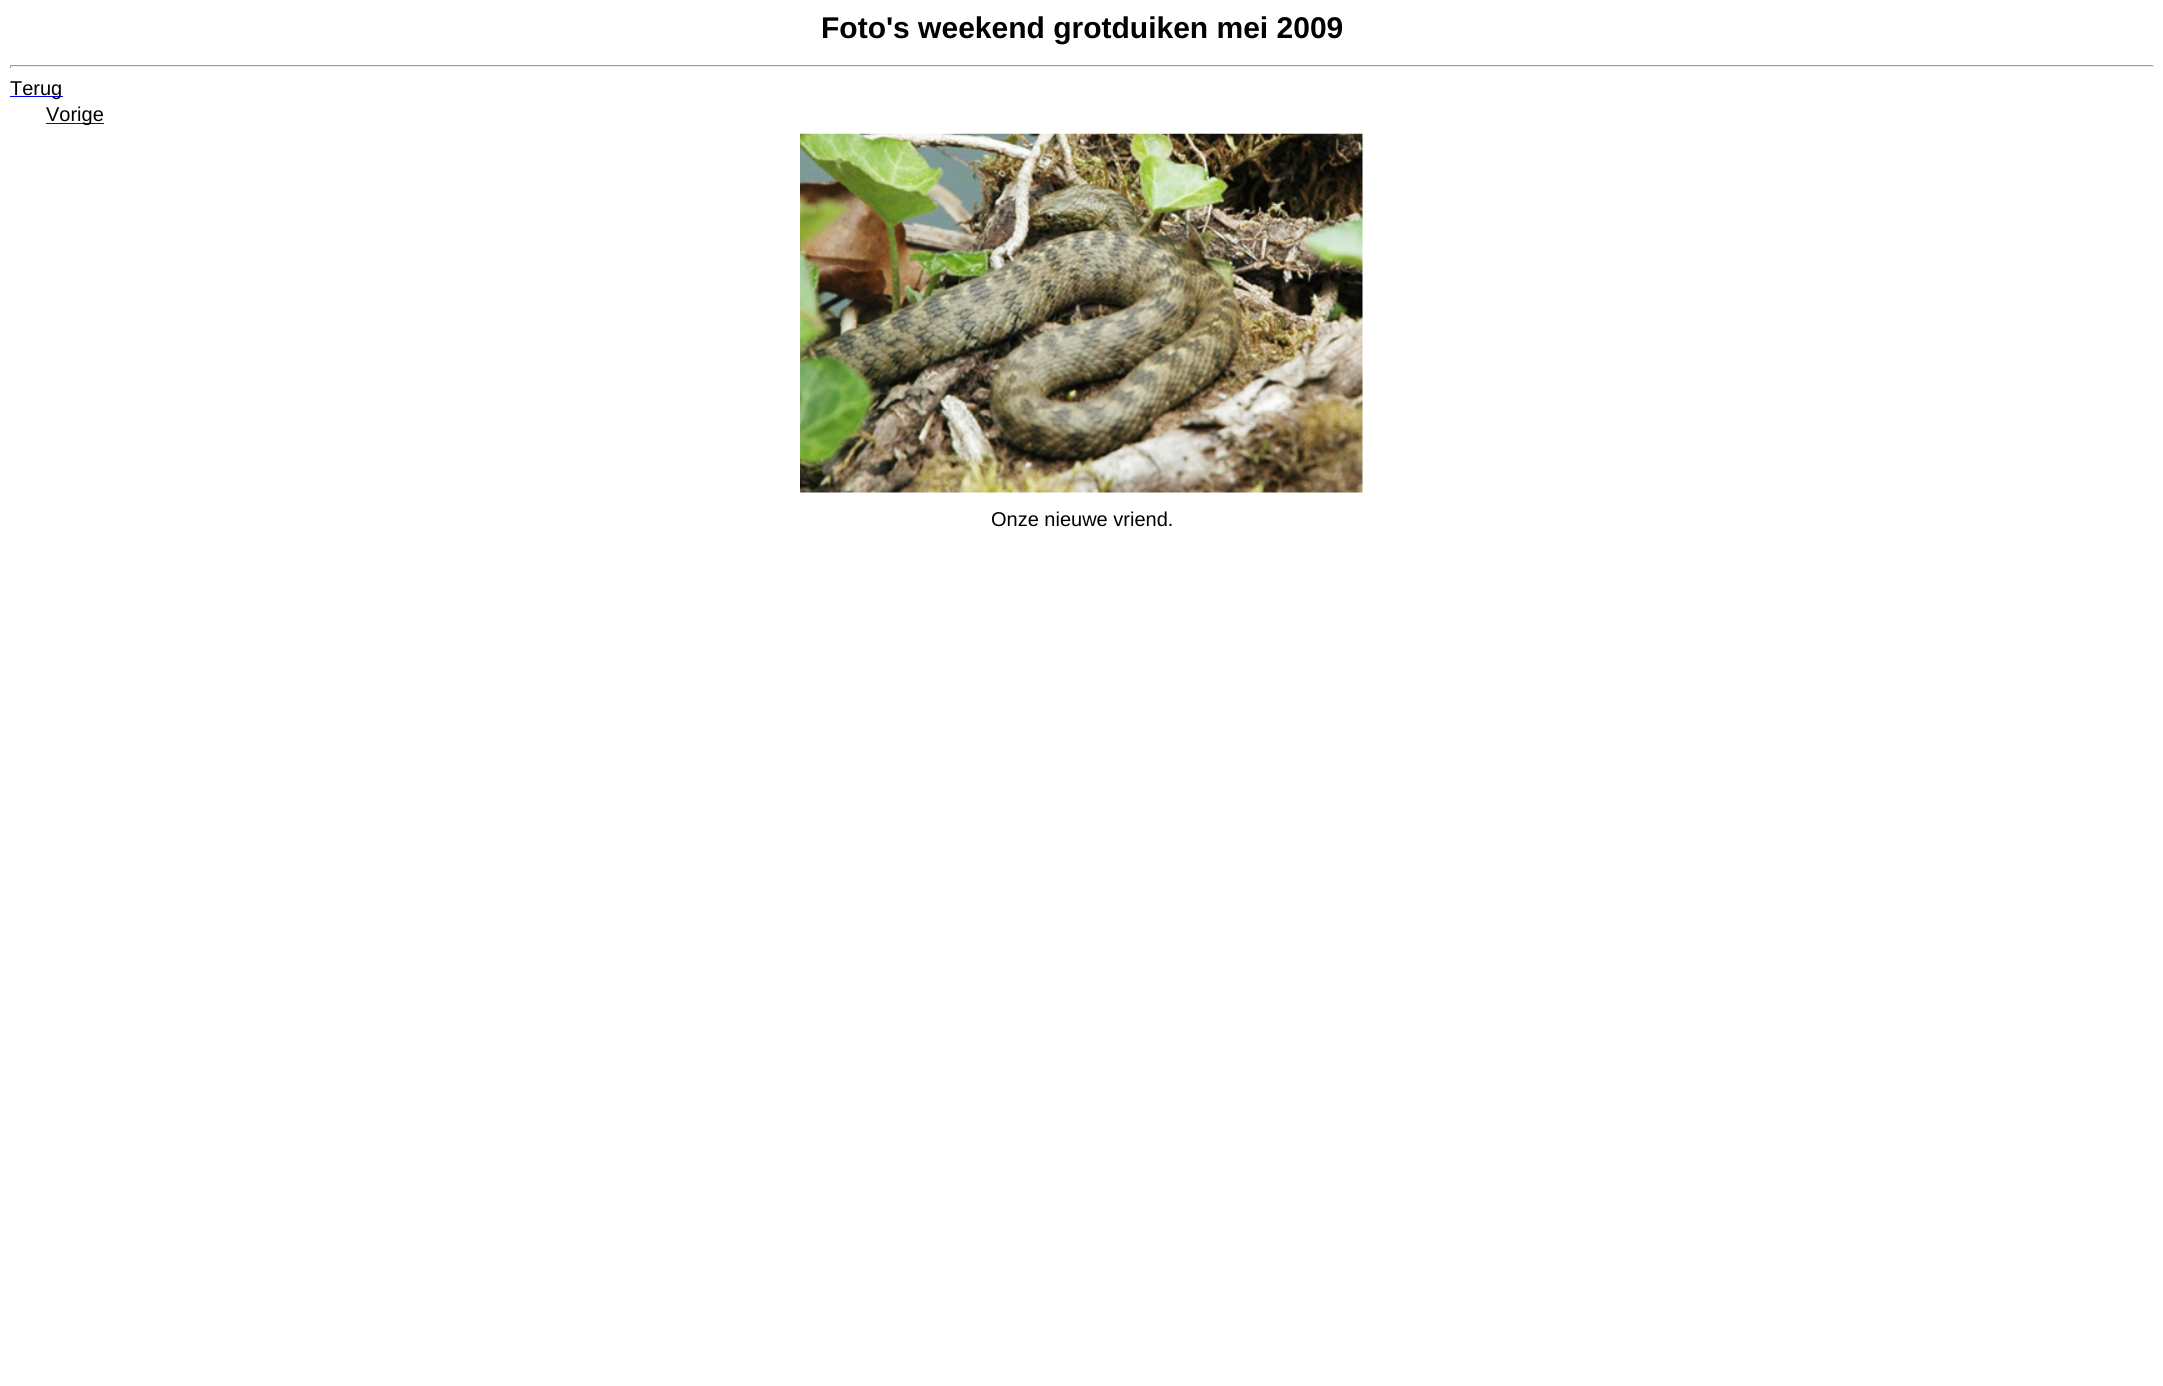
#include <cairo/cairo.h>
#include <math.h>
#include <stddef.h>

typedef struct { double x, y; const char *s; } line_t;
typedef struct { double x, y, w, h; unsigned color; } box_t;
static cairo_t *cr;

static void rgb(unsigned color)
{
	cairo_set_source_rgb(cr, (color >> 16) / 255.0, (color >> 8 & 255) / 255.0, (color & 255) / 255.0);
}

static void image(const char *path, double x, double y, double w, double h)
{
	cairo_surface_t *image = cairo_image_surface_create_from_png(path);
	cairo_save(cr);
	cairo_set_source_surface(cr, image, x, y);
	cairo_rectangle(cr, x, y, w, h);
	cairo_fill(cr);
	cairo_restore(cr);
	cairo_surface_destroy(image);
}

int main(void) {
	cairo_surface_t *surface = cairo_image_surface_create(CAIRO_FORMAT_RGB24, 2163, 1386);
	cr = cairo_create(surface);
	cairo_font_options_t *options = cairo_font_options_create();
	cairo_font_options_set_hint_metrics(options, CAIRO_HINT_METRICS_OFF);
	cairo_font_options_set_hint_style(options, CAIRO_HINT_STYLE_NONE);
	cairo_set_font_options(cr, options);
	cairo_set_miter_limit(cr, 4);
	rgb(0xffffff);
	cairo_paint(cr);
	{
		static const box_t items[] = {
			{10, 65, 2144, 1, 0x9f9f9f},
			{2153, 65, 1, 3, 0xeeeeee},
			{10, 66, 2144, 1, 0xeeeeee},
			{10, 65, 1, 3, 0x9f9f9f},
			{10, 96, 53, 1, 0x0000ee},
			{46, 123, 58, 1, 0x0000ee},
		};
		for (size_t i = 0; i < sizeof items / sizeof *items; i++) {
			rgb(items[i].color);
			cairo_rectangle(cr, items[i].x, items[i].y, items[i].w, items[i].h);
			cairo_fill(cr);
		}
	}
	image("img/1.png", 800, 133, 563, 360);
	cairo_select_font_face(cr, "Liberation Sans", CAIRO_FONT_SLANT_NORMAL, CAIRO_FONT_WEIGHT_BOLD);
	cairo_set_font_size(cr, 30);
	rgb(0x000000);
	cairo_move_to(cr, 821, 38);
	cairo_show_text(cr, "Foto's weekend grotduiken mei 2009");
	cairo_select_font_face(cr, "Liberation Sans", CAIRO_FONT_SLANT_NORMAL, CAIRO_FONT_WEIGHT_NORMAL);
	cairo_set_font_size(cr, 20);
	{
		static const line_t items[] = {
			{10, 95, "Terug"},
			{46, 121, "Vorige"},
			{991, 526, "Onze nieuwe vriend."},
		};
		for (size_t i = 0; i < sizeof items / sizeof *items; i++) {
			cairo_move_to(cr, items[i].x, items[i].y);
			cairo_show_text(cr, items[i].s);
		}
	}
	cairo_surface_write_to_png(surface, "page.png");
	cairo_font_options_destroy(options);
	cairo_destroy(cr);
	cairo_surface_destroy(surface);
	return 0;
}
